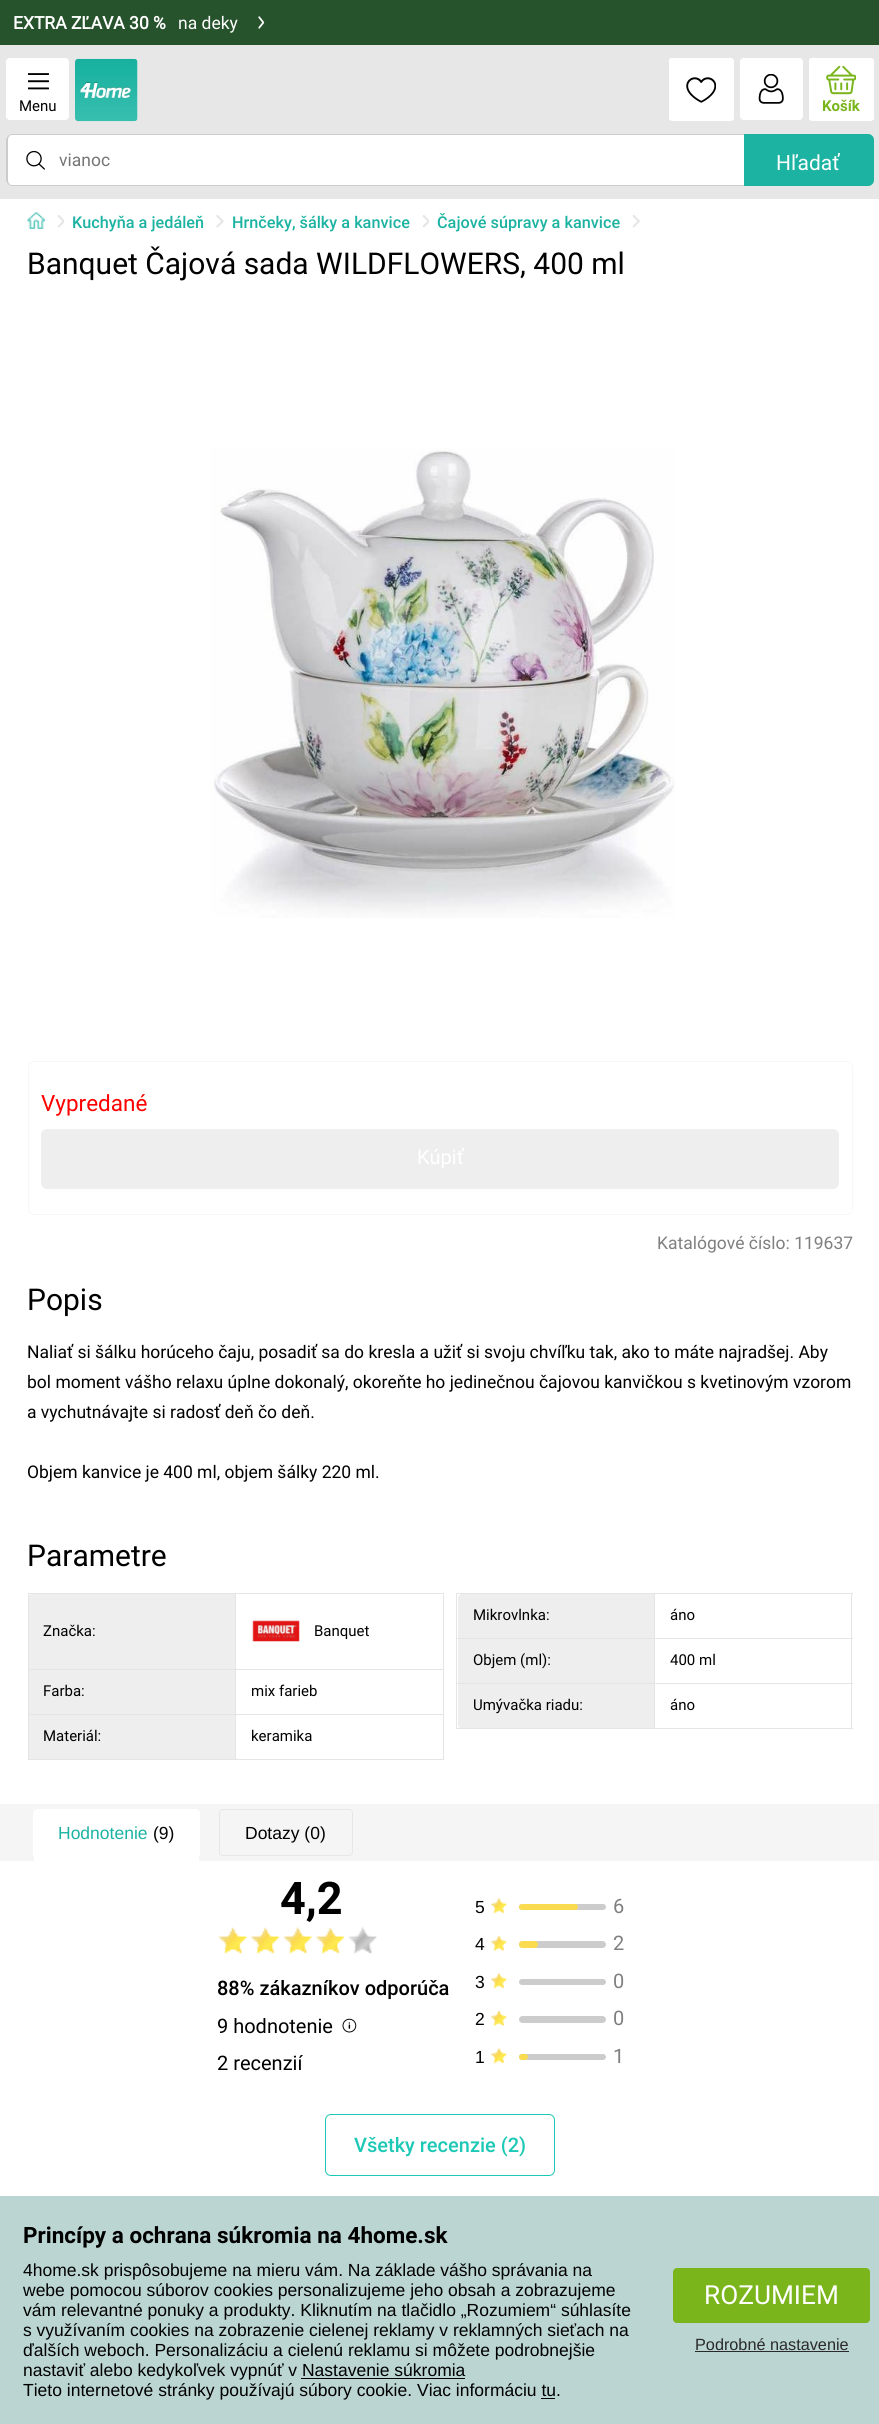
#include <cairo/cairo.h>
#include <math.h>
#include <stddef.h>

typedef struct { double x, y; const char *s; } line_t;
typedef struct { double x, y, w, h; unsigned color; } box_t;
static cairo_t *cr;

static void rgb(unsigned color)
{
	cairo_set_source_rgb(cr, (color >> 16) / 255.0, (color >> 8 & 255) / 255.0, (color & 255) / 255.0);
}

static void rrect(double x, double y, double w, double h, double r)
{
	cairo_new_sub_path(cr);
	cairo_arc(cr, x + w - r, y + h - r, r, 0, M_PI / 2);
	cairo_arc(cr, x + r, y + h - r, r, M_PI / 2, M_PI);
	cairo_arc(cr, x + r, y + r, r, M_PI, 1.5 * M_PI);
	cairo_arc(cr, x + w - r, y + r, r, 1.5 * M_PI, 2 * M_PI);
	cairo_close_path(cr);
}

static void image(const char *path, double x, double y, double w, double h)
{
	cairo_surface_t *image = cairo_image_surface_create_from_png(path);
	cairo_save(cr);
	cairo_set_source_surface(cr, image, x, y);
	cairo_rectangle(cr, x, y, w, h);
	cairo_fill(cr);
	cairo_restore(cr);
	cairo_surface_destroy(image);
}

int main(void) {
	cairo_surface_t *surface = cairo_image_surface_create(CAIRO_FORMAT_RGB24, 879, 2424);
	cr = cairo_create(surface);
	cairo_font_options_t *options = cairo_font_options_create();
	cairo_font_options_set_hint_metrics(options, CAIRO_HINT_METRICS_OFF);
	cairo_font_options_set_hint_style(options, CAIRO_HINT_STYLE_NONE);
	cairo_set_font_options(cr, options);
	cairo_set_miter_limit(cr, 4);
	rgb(0xffffff);
	cairo_paint(cr);
	rgb(0x27532c);
	cairo_rectangle(cr, 0, 0, 879, 45);
	cairo_fill(cr);
	image("img/1.png", 258, 16, 7, 13);
	rgb(0xe7e7e7);
	cairo_rectangle(cr, 0, 45, 879, 154);
	cairo_fill(cr);
	rgb(0xffffff);
	rrect(6, 58, 63, 62, 4);
	cairo_fill(cr);
	image("img/2.png", 28, 73, 21, 17);
	image("img/3.png", 75, 58, 63, 64);
	rrect(669, 58, 65, 63, 4);
	cairo_fill(cr);
	cairo_set_fill_rule(cr, CAIRO_FILL_RULE_EVEN_ODD);
	cairo_new_path(cr);
	cairo_move_to(cr, 672, 58);
	cairo_line_to(cr, 730, 58);
	cairo_curve_to(cr, 732, 58, 734, 59, 734, 61);
	cairo_line_to(cr, 734, 118);
	cairo_curve_to(cr, 734, 120, 732, 121, 730, 121);
	cairo_line_to(cr, 672, 121);
	cairo_curve_to(cr, 670, 121, 669, 120, 669, 118);
	cairo_line_to(cr, 669, 61);
	cairo_curve_to(cr, 669, 59, 670, 58, 672, 58);
	cairo_close_path(cr);
	cairo_move_to(cr, 672, 59);
	cairo_line_to(cr, 730, 59);
	cairo_curve_to(cr, 731, 59, 732, 60, 732, 61);
	cairo_line_to(cr, 732, 118);
	cairo_curve_to(cr, 732, 120, 731, 121, 730, 121);
	cairo_line_to(cr, 672, 121);
	cairo_curve_to(cr, 671, 121, 670, 120, 670, 118);
	cairo_line_to(cr, 670, 61);
	cairo_curve_to(cr, 670, 60, 671, 59, 672, 59);
	cairo_close_path(cr);
	cairo_fill(cr);
	image("img/4.png", 686, 77, 30, 26);
	rrect(740.5, 58.5, 62, 61, 3.5);
	cairo_fill_preserve(cr);
	cairo_set_line_width(cr, 1);
	cairo_stroke(cr);
	image("img/5.png", 758, 74, 26, 30);
	rrect(809, 58, 65, 63, 4);
	cairo_fill(cr);
	cairo_new_path(cr);
	cairo_move_to(cr, 812, 58);
	cairo_line_to(cr, 870, 58);
	cairo_curve_to(cr, 872, 58, 874, 59, 874, 61);
	cairo_line_to(cr, 874, 118);
	cairo_curve_to(cr, 874, 120, 872, 121, 870, 121);
	cairo_line_to(cr, 812, 121);
	cairo_curve_to(cr, 810, 121, 809, 120, 809, 118);
	cairo_line_to(cr, 809, 61);
	cairo_curve_to(cr, 809, 59, 810, 58, 812, 58);
	cairo_close_path(cr);
	cairo_move_to(cr, 812, 59);
	cairo_line_to(cr, 870, 59);
	cairo_curve_to(cr, 871, 59, 872, 60, 872, 61);
	cairo_line_to(cr, 872, 118);
	cairo_curve_to(cr, 872, 120, 871, 121, 870, 121);
	cairo_line_to(cr, 812, 121);
	cairo_curve_to(cr, 811, 121, 810, 120, 810, 118);
	cairo_line_to(cr, 810, 61);
	cairo_curve_to(cr, 810, 60, 811, 59, 812, 59);
	cairo_close_path(cr);
	cairo_fill(cr);
	image("img/6.png", 826, 65, 30, 30);
	cairo_new_path(cr);
	cairo_move_to(cr, 12, 134);
	cairo_line_to(cr, 869, 134);
	cairo_line_to(cr, 869, 186);
	cairo_line_to(cr, 12, 186);
	cairo_curve_to(cr, 8.5, 186, 6, 183.5, 6, 180);
	cairo_line_to(cr, 6, 140);
	cairo_curve_to(cr, 6, 136.5, 8.5, 134, 12, 134);
	cairo_close_path(cr);
	cairo_fill(cr);
	image("img/7.png", 26, 150, 19, 20);
	rgb(0xcccccc);
	cairo_new_path(cr);
	cairo_move_to(cr, 12, 134);
	cairo_line_to(cr, 869, 134);
	cairo_line_to(cr, 869, 186);
	cairo_line_to(cr, 12, 186);
	cairo_curve_to(cr, 9, 186, 6, 183, 6, 180);
	cairo_line_to(cr, 6, 140);
	cairo_curve_to(cr, 6, 137, 9, 134, 12, 134);
	cairo_close_path(cr);
	cairo_move_to(cr, 12, 135);
	cairo_line_to(cr, 869, 135);
	cairo_line_to(cr, 869, 185);
	cairo_line_to(cr, 12, 185);
	cairo_curve_to(cr, 10, 185, 8, 183, 8, 180);
	cairo_line_to(cr, 8, 140);
	cairo_curve_to(cr, 8, 137, 10, 135, 12, 135);
	cairo_close_path(cr);
	cairo_fill(cr);
	rgb(0x1cb3a2);
	cairo_new_path(cr);
	cairo_move_to(cr, 744.5, 134.5);
	cairo_line_to(cr, 868, 134.5);
	cairo_curve_to(cr, 871, 134.5, 873.5, 137, 873.5, 140);
	cairo_line_to(cr, 873.5, 180);
	cairo_curve_to(cr, 873.5, 183, 871, 185.5, 868, 185.5);
	cairo_line_to(cr, 744.5, 185.5);
	cairo_close_path(cr);
	cairo_fill_preserve(cr);
	cairo_stroke(cr);
	image("img/8.png", 27, 212, 18, 17);
	image("img/9.png", 57, 215, 7, 13);
	image("img/10.png", 216, 215, 8, 13);
	image("img/9.png", 422, 215, 7, 13);
	image("img/11.png", 632, 215, 8, 13);
	image("img/12.png", 210, 448, 465, 470);
	rrect(28.5, 1061.5, 824, 153, 5.5);
	rgb(0xf7f7f7);
	cairo_stroke(cr);
	rgb(0xeeeeee);
	rrect(41, 1129, 798, 60, 6);
	cairo_fill(cr);
	cairo_new_path(cr);
	cairo_move_to(cr, 32, 1594);
	cairo_line_to(cr, 235, 1594);
	cairo_line_to(cr, 235, 1670);
	cairo_line_to(cr, 28, 1670);
	cairo_line_to(cr, 28, 1598);
	cairo_curve_to(cr, 28, 1596, 30, 1594, 32, 1594);
	cairo_close_path(cr);
	cairo_fill(cr);
	{
		static const box_t items[] = {
			{235, 1593, 209, 1, 0xe5e5e5},
			{235, 1669, 209, 1, 0xe5e5e5},
			{235, 1714, 209, 1, 0xe5e5e5},
			{443, 1714, 1, 46, 0xe5e5e5},
			{235, 1759, 209, 1, 0xe5e5e5},
			{235, 1714, 1, 46, 0xe5e5e5},
			{28, 1714, 208, 1, 0xe5e5e5},
			{235, 1669, 1, 46, 0xe5e5e5},
			{28, 1669, 208, 1, 0xe5e5e5},
			{235, 1593, 1, 77, 0xe5e5e5},
			{28, 1593, 208, 1, 0xe5e5e5},
		};
		for (size_t i = 0; i < sizeof items / sizeof *items; i++) {
			rgb(items[i].color);
			cairo_rectangle(cr, items[i].x, items[i].y, items[i].w, items[i].h);
			cairo_fill(cr);
		}
	}
	rgb(0xeeeeee);
	cairo_new_path(cr);
	cairo_move_to(cr, 28, 1715);
	cairo_line_to(cr, 235, 1715);
	cairo_line_to(cr, 235, 1760);
	cairo_line_to(cr, 32, 1760);
	cairo_curve_to(cr, 30, 1760, 28, 1758, 28, 1756);
	cairo_close_path(cr);
	cairo_fill(cr);
	{
		static const box_t items[] = {
			{28, 1759, 208, 1, 0xe5e5e5},
			{28, 1714, 1, 46, 0xe5e5e5},
			{28, 1669, 1, 46, 0xe5e5e5},
			{28, 1593, 1, 77, 0xe5e5e5},
			{443, 1669, 1, 46, 0xe5e5e5},
			{443, 1593, 1, 77, 0xe5e5e5},
		};
		for (size_t i = 0; i < sizeof items / sizeof *items; i++) {
			rgb(items[i].color);
			cairo_rectangle(cr, items[i].x, items[i].y, items[i].w, items[i].h);
			cairo_fill(cr);
		}
	}
	image("img/13.png", 251, 1620, 49, 22);
	rgb(0xeeeeee);
	cairo_rectangle(cr, 29, 1670, 206, 44);
	cairo_fill(cr);
	cairo_new_path(cr);
	cairo_move_to(cr, 462, 1594);
	cairo_line_to(cr, 655, 1594);
	cairo_line_to(cr, 655, 1639);
	cairo_line_to(cr, 458, 1639);
	cairo_line_to(cr, 458, 1598);
	cairo_curve_to(cr, 458, 1596, 460, 1594, 462, 1594);
	cairo_close_path(cr);
	cairo_fill(cr);
	{
		static const box_t items[] = {
			{654, 1593, 199, 1, 0xe5e5e5},
			{654, 1638, 199, 1, 0xe5e5e5},
			{654, 1683, 199, 1, 0xe5e5e5},
		};
		for (size_t i = 0; i < sizeof items / sizeof *items; i++) {
			rgb(items[i].color);
			cairo_rectangle(cr, items[i].x, items[i].y, items[i].w, items[i].h);
			cairo_fill(cr);
		}
	}
	rgb(0xeeeeee);
	cairo_new_path(cr);
	cairo_move_to(cr, 458, 1684);
	cairo_line_to(cr, 655, 1684);
	cairo_line_to(cr, 655, 1729);
	cairo_line_to(cr, 462, 1729);
	cairo_curve_to(cr, 460, 1729, 458, 1727, 458, 1725);
	cairo_close_path(cr);
	cairo_fill(cr);
	{
		static const box_t items[] = {
			{851, 1683, 1, 46, 0xe5e5e5},
			{654, 1728, 199, 1, 0xe5e5e5},
			{654, 1683, 1, 46, 0xe5e5e5},
			{456, 1683, 199, 1, 0xe5e5e5},
			{654, 1638, 1, 46, 0xe5e5e5},
			{456, 1638, 199, 1, 0xe5e5e5},
			{654, 1593, 1, 46, 0xe5e5e5},
			{456, 1593, 199, 1, 0xe5e5e5},
			{456, 1728, 199, 1, 0xe5e5e5},
			{456, 1683, 1, 46, 0xe5e5e5},
			{456, 1638, 1, 46, 0xe5e5e5},
			{456, 1593, 1, 46, 0xe5e5e5},
			{851, 1638, 1, 46, 0xe5e5e5},
			{851, 1593, 1, 46, 0xe5e5e5},
			{458, 1639, 196, 44, 0xeeeeee},
			{0, 1804, 879, 57, 0xf5f5f5},
		};
		for (size_t i = 0; i < sizeof items / sizeof *items; i++) {
			rgb(items[i].color);
			cairo_rectangle(cr, items[i].x, items[i].y, items[i].w, items[i].h);
			cairo_fill(cr);
		}
	}
	rgb(0xffffff);
	cairo_new_path(cr);
	cairo_move_to(cr, 37, 1809);
	cairo_line_to(cr, 196, 1809);
	cairo_curve_to(cr, 198, 1809, 200, 1811, 200, 1813);
	cairo_line_to(cr, 200, 1856);
	cairo_line_to(cr, 33, 1856);
	cairo_line_to(cr, 33, 1813);
	cairo_curve_to(cr, 33, 1811, 35, 1809, 37, 1809);
	cairo_close_path(cr);
	cairo_fill(cr);
	cairo_rectangle(cr, 34, 1856, 165, 5);
	cairo_fill(cr);
	rrect(219.5, 1809.5, 133, 46, 3.5);
	rgb(0xe7e7e7);
	cairo_stroke(cr);
	image("img/14.png", 218, 1926, 159, 28);
	image("img/15.png", 342, 2018, 15, 15);
	image("img/16.png", 491, 1897, 16, 17);
	rgb(0xcccccc);
	rrect(519, 1904, 87, 6, 3);
	cairo_fill(cr);
	rgb(0xfbdc50);
	rrect(519, 1904, 59, 6, 3);
	cairo_fill(cr);
	image("img/17.png", 491, 1935, 16, 17);
	rgb(0xcccccc);
	rrect(519, 1941, 87, 7, 3.5);
	cairo_fill(cr);
	rgb(0xfbdc50);
	rrect(519, 1941, 19, 7, 3.5);
	cairo_fill(cr);
	image("img/16.png", 491, 1972, 16, 17);
	rgb(0xcccccc);
	rrect(519, 1979, 87, 6, 3);
	cairo_fill(cr);
	image("img/17.png", 491, 2010, 16, 17);
	rrect(519, 2016, 87, 7, 3.5);
	cairo_fill(cr);
	image("img/18.png", 491, 2047, 16, 17);
	rrect(519, 2054, 87, 6, 3);
	cairo_fill(cr);
	rgb(0xfbdc50);
	rrect(519, 2054, 9, 6, 3);
	cairo_fill(cr);
	rrect(325.5, 2114.5, 229, 61, 5.5);
	rgb(0x1dc9b6);
	cairo_stroke(cr);
	{
		static const box_t items[] = {
			{0, 2196, 879, 228, 0xbbd5d2},
			{301, 2378, 164, 1, 0x000000},
			{541, 2398, 14, 1, 0x000000},
		};
		for (size_t i = 0; i < sizeof items / sizeof *items; i++) {
			rgb(items[i].color);
			cairo_rectangle(cr, items[i].x, items[i].y, items[i].w, items[i].h);
			cairo_fill(cr);
		}
	}
	rgb(0x7ab51c);
	rrect(673, 2268, 197, 55, 4);
	cairo_fill(cr);
	rgb(0x2a2a2a);
	cairo_rectangle(cr, 695, 2351, 154, 1);
	cairo_fill(cr);
	cairo_select_font_face(cr, "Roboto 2", CAIRO_FONT_SLANT_NORMAL, CAIRO_FONT_WEIGHT_BOLD);
	cairo_set_font_size(cr, 17.5);
	rgb(0xffffff);
	cairo_move_to(cr, 13, 29);
	cairo_show_text(cr, "EXTRA ZĽAVA 30 %");
	cairo_select_font_face(cr, "Roboto", CAIRO_FONT_SLANT_NORMAL, CAIRO_FONT_WEIGHT_NORMAL);
	cairo_move_to(cr, 178, 29);
	cairo_show_text(cr, "na deky");
	cairo_set_font_size(cr, 15);
	rgb(0x000000);
	cairo_move_to(cr, 19, 111);
	cairo_show_text(cr, "Menu");
	cairo_select_font_face(cr, "Roboto", CAIRO_FONT_SLANT_NORMAL, CAIRO_FONT_WEIGHT_BOLD);
	rgb(0x7ab51c);
	cairo_move_to(cr, 822, 111);
	cairo_show_text(cr, "Košík");
	cairo_select_font_face(cr, "Roboto", CAIRO_FONT_SLANT_NORMAL, CAIRO_FONT_WEIGHT_NORMAL);
	cairo_set_font_size(cr, 17.5);
	rgb(0x757575);
	cairo_move_to(cr, 59, 166);
	cairo_show_text(cr, "vianoc");
	cairo_set_font_size(cr, 21);
	rgb(0xffffff);
	cairo_move_to(cr, 776, 170);
	cairo_show_text(cr, "Hľadať");
	cairo_select_font_face(cr, "Roboto Medium", CAIRO_FONT_SLANT_NORMAL, CAIRO_FONT_WEIGHT_NORMAL);
	cairo_set_font_size(cr, 16.25);
	rgb(0x1cb3a2);
	{
		static const line_t items[] = {
			{72, 228, "Kuchyňa a jedáleň"},
			{232, 228, "Hrnčeky, šálky a kanvice"},
			{437, 228, "Čajové súpravy a kanvice"},
		};
		for (size_t i = 0; i < sizeof items / sizeof *items; i++) {
			cairo_move_to(cr, items[i].x, items[i].y);
			cairo_show_text(cr, items[i].s);
		}
	}
	cairo_select_font_face(cr, "Roboto", CAIRO_FONT_SLANT_NORMAL, CAIRO_FONT_WEIGHT_NORMAL);
	cairo_set_font_size(cr, 30);
	rgb(0x000000);
	cairo_move_to(cr, 27, 274);
	cairo_show_text(cr, "Banquet Čajová sada WILDFLOWERS, 400 ml");
	cairo_set_font_size(cr, 22.5);
	rgb(0xff0000);
	cairo_move_to(cr, 41, 1111);
	cairo_show_text(cr, "Vypredané");
	cairo_set_font_size(cr, 20);
	rgb(0xffffff);
	cairo_move_to(cr, 417, 1164);
	cairo_show_text(cr, "Kúpiť");
	cairo_set_font_size(cr, 17.5);
	rgb(0x7f7f7f);
	cairo_move_to(cr, 657, 1249);
	cairo_show_text(cr, "Katalógové číslo: 119637");
	cairo_set_font_size(cr, 30);
	rgb(0x000000);
	cairo_move_to(cr, 27, 1310);
	cairo_show_text(cr, "Popis");
	cairo_set_font_size(cr, 17.5);
	{
		static const line_t items[] = {
			{27, 1358, "Naliať si šálku horúceho čaju, posadiť sa do kresla a užiť si svoju chvíľku tak, ako to máte najradšej. Aby"},
			{27, 1388, "bol moment vášho relaxu úplne dokonalý, okoreňte ho jedinečnou čajovou kanvičkou s kvetinovým vzorom"},
			{27, 1418, "a vychutnávajte si radosť deň čo deň."},
			{27, 1478, "Objem kanvice je 400 ml, objem šálky 220 ml."},
		};
		for (size_t i = 0; i < sizeof items / sizeof *items; i++) {
			cairo_move_to(cr, items[i].x, items[i].y);
			cairo_show_text(cr, items[i].s);
		}
	}
	cairo_set_font_size(cr, 30);
	cairo_move_to(cr, 27, 1566);
	cairo_show_text(cr, "Parametre");
	cairo_set_font_size(cr, 15);
	{
		static const line_t items[] = {
			{43, 1636, "Značka:"},
			{314, 1636, "Banquet"},
			{43, 1696, "Farba:"},
			{251, 1696, "mix farieb"},
			{43, 1741, "Materiál:"},
			{251, 1741, "keramika"},
			{473, 1620, "Mikrovlnka:"},
			{670, 1620, "áno"},
			{473, 1665, "Objem (ml):"},
			{670, 1665, "400 ml"},
			{473, 1710, "Umývačka riadu:"},
			{670, 1710, "áno"},
		};
		for (size_t i = 0; i < sizeof items / sizeof *items; i++) {
			cairo_move_to(cr, items[i].x, items[i].y);
			cairo_show_text(cr, items[i].s);
		}
	}
	cairo_select_font_face(cr, "Liberation Sans", CAIRO_FONT_SLANT_NORMAL, CAIRO_FONT_WEIGHT_NORMAL);
	cairo_set_font_size(cr, 17.5);
	rgb(0x1cb3a2);
	cairo_move_to(cr, 58, 1839);
	cairo_show_text(cr, "Hodnotenie");
	rgb(0x000000);
	cairo_move_to(cr, 153, 1839);
	cairo_show_text(cr, "(9)");
	cairo_move_to(cr, 245, 1839);
	cairo_show_text(cr, "Dotazy (0)");
	cairo_select_font_face(cr, "Roboto", CAIRO_FONT_SLANT_NORMAL, CAIRO_FONT_WEIGHT_BOLD);
	cairo_set_font_size(cr, 45);
	cairo_move_to(cr, 280, 1914);
	cairo_show_text(cr, "4,2");
	cairo_select_font_face(cr, "Roboto Medium", CAIRO_FONT_SLANT_NORMAL, CAIRO_FONT_WEIGHT_NORMAL);
	cairo_set_font_size(cr, 20);
	cairo_move_to(cr, 217, 1995);
	cairo_show_text(cr, "88% zákazníkov odporúča");
	cairo_select_font_face(cr, "Roboto", CAIRO_FONT_SLANT_NORMAL, CAIRO_FONT_WEIGHT_NORMAL);
	cairo_move_to(cr, 217, 2033);
	cairo_show_text(cr, "9 hodnotenie");
	cairo_move_to(cr, 217, 2070);
	cairo_show_text(cr, "2 recenzií");
	cairo_select_font_face(cr, "Liberation Sans", CAIRO_FONT_SLANT_NORMAL, CAIRO_FONT_WEIGHT_NORMAL);
	cairo_set_font_size(cr, 17.5);
	cairo_move_to(cr, 475, 1913);
	cairo_show_text(cr, "5");
	cairo_select_font_face(cr, "Roboto", CAIRO_FONT_SLANT_NORMAL, CAIRO_FONT_WEIGHT_NORMAL);
	cairo_set_font_size(cr, 20);
	rgb(0x7f7f7f);
	cairo_move_to(cr, 613, 1913);
	cairo_show_text(cr, "6");
	cairo_select_font_face(cr, "Liberation Sans", CAIRO_FONT_SLANT_NORMAL, CAIRO_FONT_WEIGHT_NORMAL);
	cairo_set_font_size(cr, 17.5);
	rgb(0x000000);
	cairo_move_to(cr, 475, 1950);
	cairo_show_text(cr, "4");
	cairo_select_font_face(cr, "Roboto", CAIRO_FONT_SLANT_NORMAL, CAIRO_FONT_WEIGHT_NORMAL);
	cairo_set_font_size(cr, 20);
	rgb(0x7f7f7f);
	cairo_move_to(cr, 613, 1950);
	cairo_show_text(cr, "2");
	cairo_select_font_face(cr, "Liberation Sans", CAIRO_FONT_SLANT_NORMAL, CAIRO_FONT_WEIGHT_NORMAL);
	cairo_set_font_size(cr, 17.5);
	rgb(0x000000);
	cairo_move_to(cr, 475, 1988);
	cairo_show_text(cr, "3");
	cairo_select_font_face(cr, "Roboto", CAIRO_FONT_SLANT_NORMAL, CAIRO_FONT_WEIGHT_NORMAL);
	cairo_set_font_size(cr, 20);
	rgb(0x7f7f7f);
	cairo_move_to(cr, 613, 1988);
	cairo_show_text(cr, "0");
	cairo_select_font_face(cr, "Liberation Sans", CAIRO_FONT_SLANT_NORMAL, CAIRO_FONT_WEIGHT_NORMAL);
	cairo_set_font_size(cr, 17.5);
	rgb(0x000000);
	cairo_move_to(cr, 475, 2025);
	cairo_show_text(cr, "2");
	cairo_select_font_face(cr, "Roboto", CAIRO_FONT_SLANT_NORMAL, CAIRO_FONT_WEIGHT_NORMAL);
	cairo_set_font_size(cr, 20);
	rgb(0x7f7f7f);
	cairo_move_to(cr, 613, 2025);
	cairo_show_text(cr, "0");
	cairo_select_font_face(cr, "Liberation Sans", CAIRO_FONT_SLANT_NORMAL, CAIRO_FONT_WEIGHT_NORMAL);
	cairo_set_font_size(cr, 17.5);
	rgb(0x000000);
	cairo_move_to(cr, 475, 2063);
	cairo_show_text(cr, "1");
	cairo_select_font_face(cr, "Roboto", CAIRO_FONT_SLANT_NORMAL, CAIRO_FONT_WEIGHT_NORMAL);
	cairo_set_font_size(cr, 20);
	rgb(0x7f7f7f);
	cairo_move_to(cr, 613, 2063);
	cairo_show_text(cr, "1");
	cairo_select_font_face(cr, "Roboto Medium", CAIRO_FONT_SLANT_NORMAL, CAIRO_FONT_WEIGHT_NORMAL);
	rgb(0x1dc9b6);
	cairo_move_to(cr, 354, 2152);
	cairo_show_text(cr, "Všetky recenzie (2)");
	cairo_select_font_face(cr, "Roboto", CAIRO_FONT_SLANT_NORMAL, CAIRO_FONT_WEIGHT_BOLD);
	cairo_set_font_size(cr, 22.5);
	rgb(0x000000);
	cairo_move_to(cr, 23, 2243);
	cairo_show_text(cr, "Princípy a ochrana súkromia na 4home.sk");
	cairo_select_font_face(cr, "Liberation Sans", CAIRO_FONT_SLANT_NORMAL, CAIRO_FONT_WEIGHT_NORMAL);
	cairo_set_font_size(cr, 17.5);
	{
		static const line_t items[] = {
			{23, 2276, "4home.sk prispôsobujeme na mieru vám. Na základe vášho správania na"},
			{23, 2296, "webe pomocou súborov cookies personalizujeme jeho obsah a zobrazujeme"},
			{23, 2316, "vám relevantné ponuky a produkty. Kliknutím na tlačidlo „Rozumiem“ súhlasíte"},
			{23, 2336, "s využívaním cookies na zobrazenie cielenej reklamy v reklamných sieťach na"},
			{23, 2356, "ďalších weboch. Personalizáciu a cielenú reklamu si môžete podrobnejšie"},
			{23, 2376, "nastaviť alebo kedykoľvek vypnúť v Nastavenie súkromia"},
			{23, 2396, "Tieto internetové stránky používajú súbory cookie. Viac informáciu tu."},
		};
		for (size_t i = 0; i < sizeof items / sizeof *items; i++) {
			cairo_move_to(cr, items[i].x, items[i].y);
			cairo_show_text(cr, items[i].s);
		}
	}
	cairo_select_font_face(cr, "Roboto", CAIRO_FONT_SLANT_NORMAL, CAIRO_FONT_WEIGHT_NORMAL);
	cairo_set_font_size(cr, 26.25);
	rgb(0xffffff);
	cairo_move_to(cr, 704, 2304);
	cairo_show_text(cr, "ROZUMIEM");
	cairo_select_font_face(cr, "Liberation Sans", CAIRO_FONT_SLANT_NORMAL, CAIRO_FONT_WEIGHT_NORMAL);
	cairo_set_font_size(cr, 16.25);
	rgb(0x2a2a2a);
	cairo_move_to(cr, 695, 2350);
	cairo_show_text(cr, "Podrobné nastavenie");
	cairo_surface_write_to_png(surface, "page.png");
	cairo_font_options_destroy(options);
	cairo_destroy(cr);
	cairo_surface_destroy(surface);
	return 0;
}
